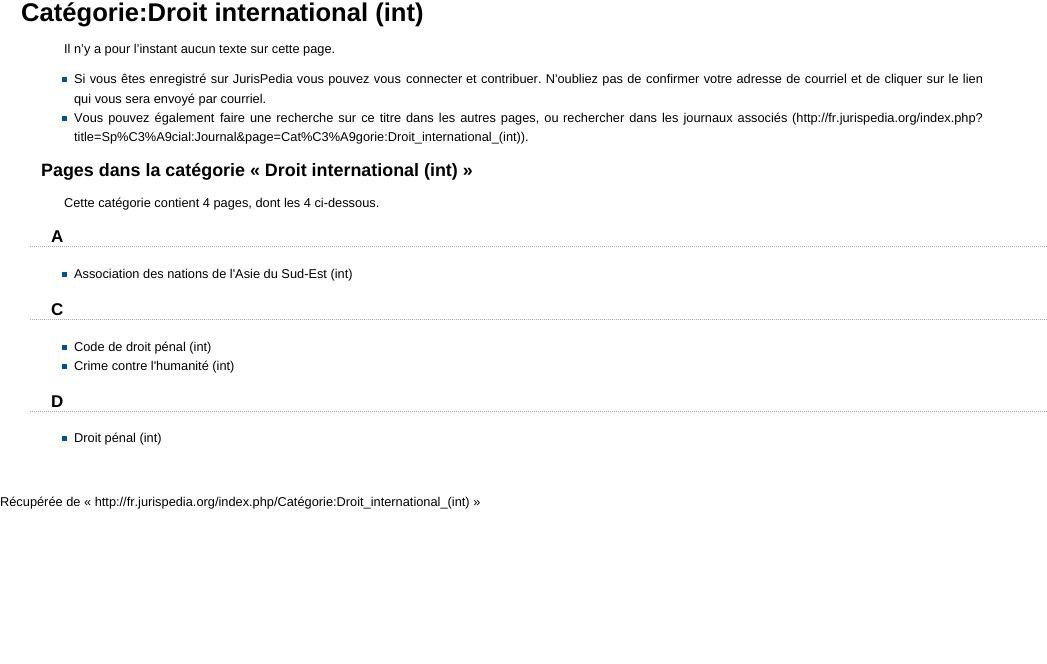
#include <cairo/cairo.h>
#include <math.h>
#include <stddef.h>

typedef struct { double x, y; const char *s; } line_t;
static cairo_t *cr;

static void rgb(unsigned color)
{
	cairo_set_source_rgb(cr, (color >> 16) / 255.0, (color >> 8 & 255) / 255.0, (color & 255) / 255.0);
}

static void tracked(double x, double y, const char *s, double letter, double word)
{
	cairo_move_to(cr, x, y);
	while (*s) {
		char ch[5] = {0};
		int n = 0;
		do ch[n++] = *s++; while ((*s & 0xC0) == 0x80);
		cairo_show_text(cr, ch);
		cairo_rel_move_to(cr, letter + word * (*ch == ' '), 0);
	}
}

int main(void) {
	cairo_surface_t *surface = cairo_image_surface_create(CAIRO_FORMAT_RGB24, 1047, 664);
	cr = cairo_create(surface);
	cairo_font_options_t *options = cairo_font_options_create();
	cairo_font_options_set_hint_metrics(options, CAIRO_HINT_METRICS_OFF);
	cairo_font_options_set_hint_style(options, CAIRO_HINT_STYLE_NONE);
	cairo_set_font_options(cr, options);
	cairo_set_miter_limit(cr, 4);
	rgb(0xffffff);
	cairo_paint(cr);
	rgb(0x00528c);
	cairo_rectangle(cr, 62, 77, 5, 5);
	cairo_fill(cr);
	cairo_rectangle(cr, 62, 116, 5, 5);
	cairo_fill(cr);
	cairo_new_path(cr);
	cairo_move_to(cr, 30, 246.5);
	cairo_line_to(cr, 1047, 246.5);
	rgb(0xaaaaaa);
	cairo_set_line_width(cr, 1);
	cairo_set_dash(cr, (double[]){1, 1}, 2, 0);
	cairo_stroke(cr);
	rgb(0x00528c);
	cairo_rectangle(cr, 62, 272, 5, 5);
	cairo_fill(cr);
	cairo_new_path(cr);
	cairo_move_to(cr, 30, 319.5);
	cairo_line_to(cr, 1047, 319.5);
	rgb(0xaaaaaa);
	cairo_stroke(cr);
	rgb(0x00528c);
	cairo_rectangle(cr, 62, 345, 5, 5);
	cairo_fill(cr);
	cairo_rectangle(cr, 62, 364, 5, 5);
	cairo_fill(cr);
	cairo_new_path(cr);
	cairo_move_to(cr, 30, 411.5);
	cairo_line_to(cr, 1047, 411.5);
	rgb(0xaaaaaa);
	cairo_stroke(cr);
	rgb(0x00528c);
	cairo_rectangle(cr, 62, 436, 5, 5);
	cairo_fill(cr);
	cairo_select_font_face(cr, "Liberation Sans", CAIRO_FONT_SLANT_NORMAL, CAIRO_FONT_WEIGHT_BOLD);
	cairo_set_font_size(cr, 25.6);
	rgb(0x000000);
	cairo_move_to(cr, 21, 21);
	cairo_show_text(cr, "Catégorie:Droit international (int)");
	cairo_select_font_face(cr, "Liberation Sans", CAIRO_FONT_SLANT_NORMAL, CAIRO_FONT_WEIGHT_NORMAL);
	cairo_set_font_size(cr, 12.8);
	cairo_move_to(cr, 64, 53);
	cairo_show_text(cr, "Il n’y a pour l’instant aucun texte sur cette page.");
	tracked(74, 83, "Si vous êtes enregistré sur JurisPedia vous pouvez vous", 0, 0.75);
	cairo_move_to(cr, 406, 83);
	cairo_show_text(cr, "connecter");
	{
		static const line_t items[] = {
			{466, 83, "et contribuer. N'oubliez pas de"},
			{646, 83, "confirmer votre adresse de courriel"},
			{851, 83, "et de cliquer sur le lien"},
		};
		for (size_t i = 0; i < sizeof items / sizeof *items; i++) {
			tracked(items[i].x, items[i].y, items[i].s, 0, 0.75);
		}
	}
	cairo_move_to(cr, 74, 103);
	cairo_show_text(cr, "qui vous sera envoyé par courriel.");
	{
		static const line_t items[] = {
			{74, 122, "Vous pouvez également"},
			{220, 122, "faire une recherche sur ce titre"},
			{406, 122, "dans les autres pages, ou"},
			{563, 122, "rechercher dans les journaux associés"},
		};
		for (size_t i = 0; i < sizeof items / sizeof *items; i++) {
			tracked(items[i].x, items[i].y, items[i].s, 0, 1.5);
		}
	}
	cairo_move_to(cr, 792, 122);
	cairo_show_text(cr, "(http://fr.jurispedia.org/index.php?");
	cairo_move_to(cr, 74, 141);
	cairo_show_text(cr, "title=Sp%C3%A9cial:Journal&page=Cat%C3%A9gorie:Droit_international_(int)).");
	cairo_select_font_face(cr, "Liberation Sans", CAIRO_FONT_SLANT_NORMAL, CAIRO_FONT_WEIGHT_BOLD);
	cairo_set_font_size(cr, 17.9);
	cairo_move_to(cr, 41, 176);
	cairo_show_text(cr, "Pages dans la catégorie « Droit international (int) »");
	cairo_select_font_face(cr, "Liberation Sans", CAIRO_FONT_SLANT_NORMAL, CAIRO_FONT_WEIGHT_NORMAL);
	cairo_set_font_size(cr, 12.8);
	cairo_move_to(cr, 64, 207);
	cairo_show_text(cr, "Cette catégorie contient 4 pages, dont les 4 ci-dessous.");
	cairo_select_font_face(cr, "Liberation Sans", CAIRO_FONT_SLANT_NORMAL, CAIRO_FONT_WEIGHT_BOLD);
	cairo_set_font_size(cr, 17);
	cairo_move_to(cr, 51, 242);
	cairo_show_text(cr, "A");
	cairo_select_font_face(cr, "Liberation Sans", CAIRO_FONT_SLANT_NORMAL, CAIRO_FONT_WEIGHT_NORMAL);
	cairo_set_font_size(cr, 12.8);
	cairo_move_to(cr, 74, 278);
	cairo_show_text(cr, "Association des nations de l'Asie du Sud-Est (int)");
	cairo_select_font_face(cr, "Liberation Sans", CAIRO_FONT_SLANT_NORMAL, CAIRO_FONT_WEIGHT_BOLD);
	cairo_set_font_size(cr, 17);
	cairo_move_to(cr, 51, 315);
	cairo_show_text(cr, "C");
	cairo_select_font_face(cr, "Liberation Sans", CAIRO_FONT_SLANT_NORMAL, CAIRO_FONT_WEIGHT_NORMAL);
	cairo_set_font_size(cr, 12.8);
	cairo_move_to(cr, 74, 351);
	cairo_show_text(cr, "Code de droit pénal (int)");
	cairo_move_to(cr, 74, 370);
	cairo_show_text(cr, "Crime contre l'humanité (int)");
	cairo_select_font_face(cr, "Liberation Sans", CAIRO_FONT_SLANT_NORMAL, CAIRO_FONT_WEIGHT_BOLD);
	cairo_set_font_size(cr, 17);
	cairo_move_to(cr, 51, 407);
	cairo_show_text(cr, "D");
	cairo_select_font_face(cr, "Liberation Sans", CAIRO_FONT_SLANT_NORMAL, CAIRO_FONT_WEIGHT_NORMAL);
	cairo_set_font_size(cr, 12.8);
	cairo_move_to(cr, 74, 442);
	cairo_show_text(cr, "Droit pénal (int)");
	cairo_move_to(cr, 0, 506);
	cairo_show_text(cr, "Récupérée de « http://fr.jurispedia.org/index.php/Catégorie:Droit_international_(int) »");
	cairo_surface_write_to_png(surface, "page.png");
	cairo_font_options_destroy(options);
	cairo_destroy(cr);
	cairo_surface_destroy(surface);
	return 0;
}
